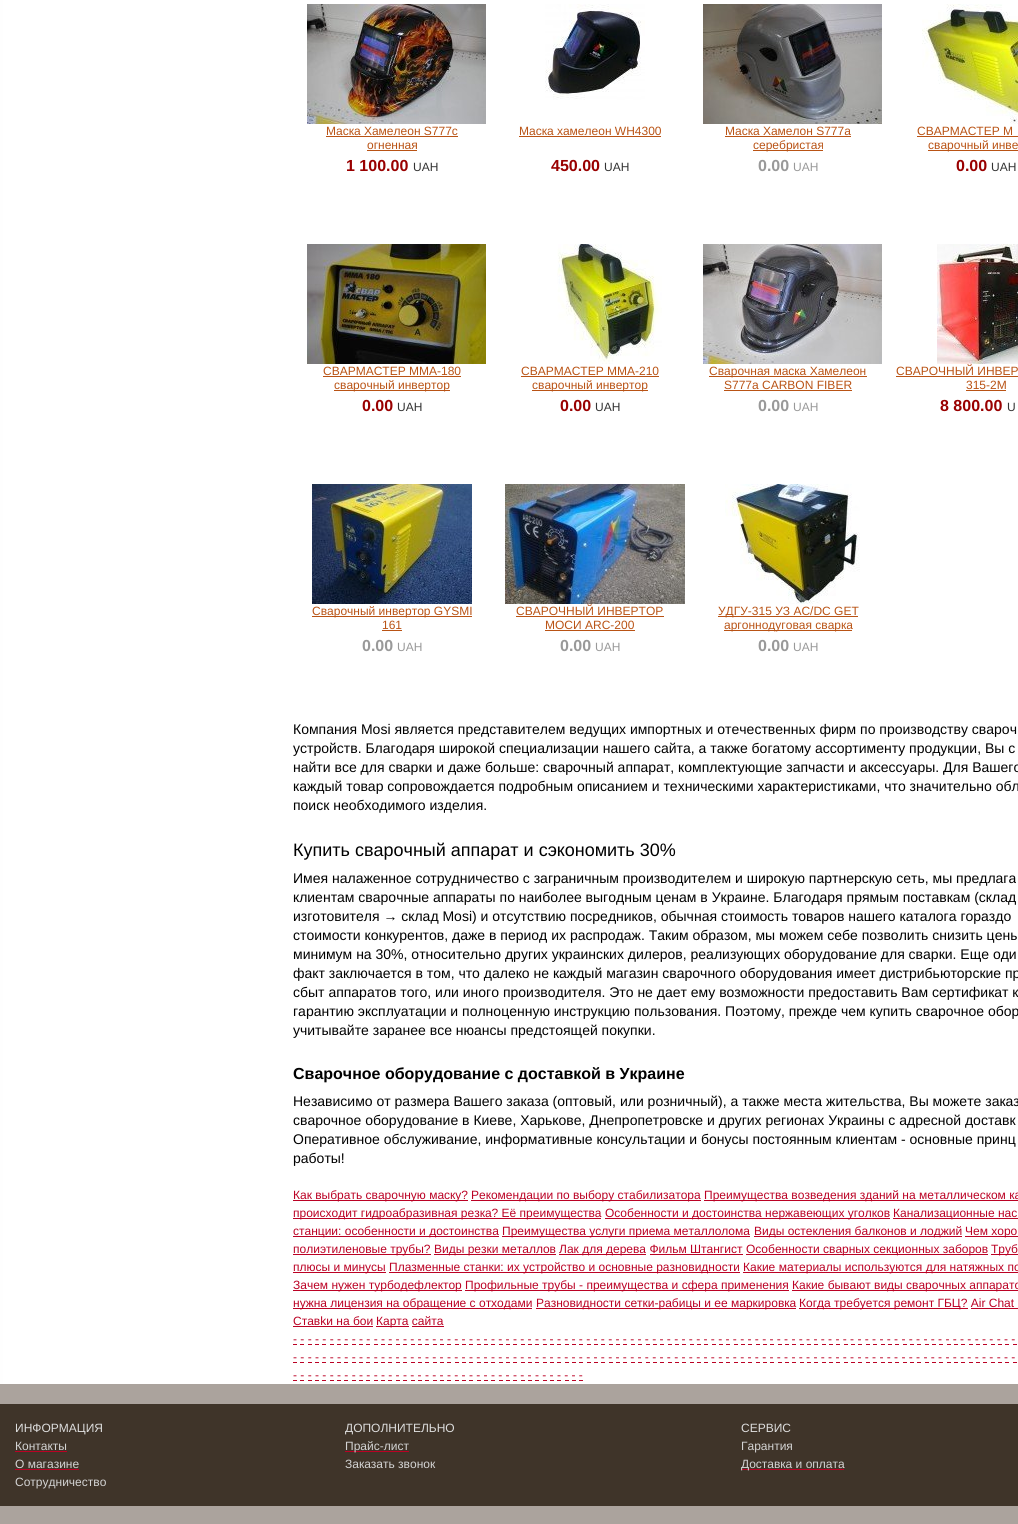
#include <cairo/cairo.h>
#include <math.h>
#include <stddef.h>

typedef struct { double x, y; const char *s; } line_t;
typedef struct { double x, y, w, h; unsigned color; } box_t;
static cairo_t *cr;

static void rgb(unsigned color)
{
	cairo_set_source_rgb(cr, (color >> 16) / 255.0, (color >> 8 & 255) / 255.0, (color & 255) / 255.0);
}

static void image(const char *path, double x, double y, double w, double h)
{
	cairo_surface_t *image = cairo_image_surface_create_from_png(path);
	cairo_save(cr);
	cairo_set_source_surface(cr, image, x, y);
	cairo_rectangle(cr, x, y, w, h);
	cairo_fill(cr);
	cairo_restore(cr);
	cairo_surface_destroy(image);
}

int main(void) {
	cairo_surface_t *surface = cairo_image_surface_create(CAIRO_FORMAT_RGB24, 1018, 1524);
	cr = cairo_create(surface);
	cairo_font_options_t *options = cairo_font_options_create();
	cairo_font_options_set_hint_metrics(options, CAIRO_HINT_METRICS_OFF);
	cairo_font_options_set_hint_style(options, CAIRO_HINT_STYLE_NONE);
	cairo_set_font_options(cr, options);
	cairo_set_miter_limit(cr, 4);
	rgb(0xaba39d);
	cairo_paint(cr);
	rgb(0xfefefe);
	cairo_rectangle(cr, 0, 0, 3, 1384);
	cairo_fill(cr);
	rgb(0xffffff);
	cairo_rectangle(cr, 3, 0, 1015, 1384);
	cairo_fill(cr);
	image("img/1.png", 307, 4, 179, 120);
	rgb(0xb95315);
	cairo_rectangle(cr, 326, 136, 132, 1);
	cairo_fill(cr);
	cairo_rectangle(cr, 367, 150, 50, 1);
	cairo_fill(cr);
	image("img/2.png", 545, 4, 100, 96);
	cairo_rectangle(cr, 519, 136, 142, 1);
	cairo_fill(cr);
	image("img/3.png", 703, 4, 179, 120);
	cairo_rectangle(cr, 725, 136, 126, 1);
	cairo_fill(cr);
	cairo_rectangle(cr, 753, 150, 70, 1);
	cairo_fill(cr);
	image("img/4.png", 922, 4, 96, 120);
	cairo_rectangle(cr, 917, 136, 101, 1);
	cairo_fill(cr);
	cairo_rectangle(cr, 928, 150, 90, 1);
	cairo_fill(cr);
	image("img/5.png", 307, 244, 179, 120);
	cairo_rectangle(cr, 323, 376, 138, 1);
	cairo_fill(cr);
	cairo_rectangle(cr, 334, 390, 116, 1);
	cairo_fill(cr);
	image("img/6.png", 557, 244, 105, 120);
	cairo_rectangle(cr, 521, 376, 138, 1);
	cairo_fill(cr);
	cairo_rectangle(cr, 532, 390, 116, 1);
	cairo_fill(cr);
	image("img/7.png", 703, 244, 179, 120);
	cairo_rectangle(cr, 709, 376, 158, 1);
	cairo_fill(cr);
	cairo_rectangle(cr, 724, 390, 128, 1);
	cairo_fill(cr);
	image("img/8.png", 937, 244, 81, 120);
	cairo_rectangle(cr, 896, 376, 122, 1);
	cairo_fill(cr);
	cairo_rectangle(cr, 966, 390, 40, 1);
	cairo_fill(cr);
	image("img/9.png", 312, 484, 160, 120);
	cairo_rectangle(cr, 312, 616, 160, 1);
	cairo_fill(cr);
	cairo_rectangle(cr, 382, 630, 20, 1);
	cairo_fill(cr);
	image("img/10.png", 505, 484, 180, 120);
	cairo_rectangle(cr, 516, 616, 148, 1);
	cairo_fill(cr);
	cairo_rectangle(cr, 545, 630, 90, 1);
	cairo_fill(cr);
	image("img/11.png", 725, 484, 135, 120);
	{
		static const box_t items[] = {
			{718, 616, 140, 1, 0xb95315},
			{724, 630, 128, 1, 0xb95315},
			{293, 1200, 175, 1, 0xbb0124},
			{471, 1200, 230, 1, 0xbb0124},
			{704, 1200, 314, 1, 0xbb0124},
			{293, 1218, 308, 1, 0xbb0124},
			{605, 1218, 285, 1, 0xbb0124},
			{893, 1218, 125, 1, 0xbb0124},
			{293, 1236, 206, 1, 0xbb0124},
			{502, 1236, 248, 1, 0xbb0124},
			{754, 1236, 208, 1, 0xbb0124},
			{965, 1236, 53, 1, 0xbb0124},
			{293, 1254, 138, 1, 0xbb0124},
			{434, 1254, 122, 1, 0xbb0124},
			{559, 1254, 87, 1, 0xbb0124},
			{746, 1254, 242, 1, 0xbb0124},
			{991, 1254, 27, 1, 0xbb0124},
			{650, 1254, 93, 1, 0xbb0124},
			{293, 1272, 93, 1, 0xbb0124},
			{389, 1272, 351, 1, 0xbb0124},
			{743, 1272, 275, 1, 0xbb0124},
			{293, 1290, 169, 1, 0xbb0124},
			{465, 1290, 324, 1, 0xbb0124},
			{792, 1290, 226, 1, 0xbb0124},
			{293, 1308, 239, 1, 0xbb0124},
			{536, 1308, 260, 1, 0xbb0124},
			{799, 1308, 169, 1, 0xbb0124},
			{971, 1308, 47, 1, 0xbb0124},
			{293, 1326, 80, 1, 0xbb0124},
			{376, 1326, 33, 1, 0xbb0124},
			{412, 1326, 32, 1, 0xbb0124},
			{293, 1344, 4, 1, 0xbb0124},
			{300, 1344, 4, 1, 0xbb0124},
			{308, 1344, 4, 1, 0xbb0124},
			{315, 1344, 4, 1, 0xbb0124},
			{322, 1344, 4, 1, 0xbb0124},
			{330, 1344, 4, 1, 0xbb0124},
			{337, 1344, 4, 1, 0xbb0124},
			{344, 1344, 4, 1, 0xbb0124},
			{352, 1344, 4, 1, 0xbb0124},
			{359, 1344, 4, 1, 0xbb0124},
			{366, 1344, 4, 1, 0xbb0124},
			{374, 1344, 4, 1, 0xbb0124},
			{381, 1344, 4, 1, 0xbb0124},
			{388, 1344, 4, 1, 0xbb0124},
			{396, 1344, 4, 1, 0xbb0124},
			{403, 1344, 4, 1, 0xbb0124},
			{411, 1344, 4, 1, 0xbb0124},
			{418, 1344, 4, 1, 0xbb0124},
			{425, 1344, 4, 1, 0xbb0124},
			{433, 1344, 4, 1, 0xbb0124},
			{440, 1344, 4, 1, 0xbb0124},
			{447, 1344, 4, 1, 0xbb0124},
			{455, 1344, 4, 1, 0xbb0124},
			{462, 1344, 4, 1, 0xbb0124},
			{469, 1344, 4, 1, 0xbb0124},
			{477, 1344, 4, 1, 0xbb0124},
			{484, 1344, 4, 1, 0xbb0124},
			{491, 1344, 4, 1, 0xbb0124},
			{499, 1344, 4, 1, 0xbb0124},
			{506, 1344, 4, 1, 0xbb0124},
			{513, 1344, 4, 1, 0xbb0124},
			{521, 1344, 4, 1, 0xbb0124},
			{528, 1344, 4, 1, 0xbb0124},
			{535, 1344, 4, 1, 0xbb0124},
			{543, 1344, 4, 1, 0xbb0124},
			{550, 1344, 4, 1, 0xbb0124},
			{557, 1344, 4, 1, 0xbb0124},
			{565, 1344, 4, 1, 0xbb0124},
			{572, 1344, 4, 1, 0xbb0124},
			{579, 1344, 4, 1, 0xbb0124},
			{587, 1344, 4, 1, 0xbb0124},
			{594, 1344, 4, 1, 0xbb0124},
			{601, 1344, 4, 1, 0xbb0124},
			{609, 1344, 4, 1, 0xbb0124},
			{616, 1344, 4, 1, 0xbb0124},
			{623, 1344, 4, 1, 0xbb0124},
			{631, 1344, 4, 1, 0xbb0124},
			{638, 1344, 4, 1, 0xbb0124},
			{646, 1344, 4, 1, 0xbb0124},
			{653, 1344, 4, 1, 0xbb0124},
			{660, 1344, 4, 1, 0xbb0124},
			{668, 1344, 4, 1, 0xbb0124},
			{675, 1344, 4, 1, 0xbb0124},
			{682, 1344, 4, 1, 0xbb0124},
			{690, 1344, 4, 1, 0xbb0124},
			{697, 1344, 4, 1, 0xbb0124},
			{704, 1344, 4, 1, 0xbb0124},
			{712, 1344, 4, 1, 0xbb0124},
			{719, 1344, 4, 1, 0xbb0124},
			{726, 1344, 4, 1, 0xbb0124},
			{734, 1344, 4, 1, 0xbb0124},
			{741, 1344, 4, 1, 0xbb0124},
			{748, 1344, 4, 1, 0xbb0124},
			{756, 1344, 4, 1, 0xbb0124},
			{763, 1344, 4, 1, 0xbb0124},
			{770, 1344, 4, 1, 0xbb0124},
			{778, 1344, 4, 1, 0xbb0124},
			{785, 1344, 4, 1, 0xbb0124},
			{792, 1344, 4, 1, 0xbb0124},
			{800, 1344, 4, 1, 0xbb0124},
			{807, 1344, 4, 1, 0xbb0124},
			{814, 1344, 4, 1, 0xbb0124},
			{822, 1344, 4, 1, 0xbb0124},
			{829, 1344, 4, 1, 0xbb0124},
			{836, 1344, 4, 1, 0xbb0124},
			{844, 1344, 4, 1, 0xbb0124},
			{851, 1344, 4, 1, 0xbb0124},
			{858, 1344, 4, 1, 0xbb0124},
			{866, 1344, 4, 1, 0xbb0124},
			{873, 1344, 4, 1, 0xbb0124},
			{881, 1344, 4, 1, 0xbb0124},
			{888, 1344, 4, 1, 0xbb0124},
			{895, 1344, 4, 1, 0xbb0124},
			{903, 1344, 4, 1, 0xbb0124},
			{910, 1344, 4, 1, 0xbb0124},
			{917, 1344, 4, 1, 0xbb0124},
			{925, 1344, 4, 1, 0xbb0124},
			{932, 1344, 4, 1, 0xbb0124},
			{939, 1344, 4, 1, 0xbb0124},
			{947, 1344, 4, 1, 0xbb0124},
			{954, 1344, 4, 1, 0xbb0124},
			{961, 1344, 4, 1, 0xbb0124},
			{969, 1344, 4, 1, 0xbb0124},
			{976, 1344, 4, 1, 0xbb0124},
			{983, 1344, 4, 1, 0xbb0124},
			{991, 1344, 4, 1, 0xbb0124},
			{998, 1344, 4, 1, 0xbb0124},
			{1005, 1344, 4, 1, 0xbb0124},
			{1013, 1344, 4, 1, 0xbb0124},
			{293, 1362, 4, 1, 0xbb0124},
			{300, 1362, 4, 1, 0xbb0124},
			{308, 1362, 4, 1, 0xbb0124},
			{315, 1362, 4, 1, 0xbb0124},
			{322, 1362, 4, 1, 0xbb0124},
			{330, 1362, 4, 1, 0xbb0124},
			{337, 1362, 4, 1, 0xbb0124},
			{344, 1362, 4, 1, 0xbb0124},
			{352, 1362, 4, 1, 0xbb0124},
			{359, 1362, 4, 1, 0xbb0124},
			{366, 1362, 4, 1, 0xbb0124},
			{374, 1362, 4, 1, 0xbb0124},
			{381, 1362, 4, 1, 0xbb0124},
			{388, 1362, 4, 1, 0xbb0124},
			{396, 1362, 4, 1, 0xbb0124},
			{403, 1362, 4, 1, 0xbb0124},
			{411, 1362, 4, 1, 0xbb0124},
			{418, 1362, 4, 1, 0xbb0124},
			{425, 1362, 4, 1, 0xbb0124},
			{433, 1362, 4, 1, 0xbb0124},
			{440, 1362, 4, 1, 0xbb0124},
			{447, 1362, 4, 1, 0xbb0124},
			{455, 1362, 4, 1, 0xbb0124},
			{462, 1362, 4, 1, 0xbb0124},
			{469, 1362, 4, 1, 0xbb0124},
			{477, 1362, 4, 1, 0xbb0124},
			{484, 1362, 4, 1, 0xbb0124},
			{491, 1362, 4, 1, 0xbb0124},
			{499, 1362, 4, 1, 0xbb0124},
			{506, 1362, 4, 1, 0xbb0124},
			{513, 1362, 4, 1, 0xbb0124},
			{521, 1362, 4, 1, 0xbb0124},
			{528, 1362, 4, 1, 0xbb0124},
			{535, 1362, 4, 1, 0xbb0124},
			{543, 1362, 4, 1, 0xbb0124},
			{550, 1362, 4, 1, 0xbb0124},
			{557, 1362, 4, 1, 0xbb0124},
			{565, 1362, 4, 1, 0xbb0124},
			{572, 1362, 4, 1, 0xbb0124},
			{579, 1362, 4, 1, 0xbb0124},
			{587, 1362, 4, 1, 0xbb0124},
			{594, 1362, 4, 1, 0xbb0124},
			{601, 1362, 4, 1, 0xbb0124},
			{609, 1362, 4, 1, 0xbb0124},
			{616, 1362, 4, 1, 0xbb0124},
			{623, 1362, 4, 1, 0xbb0124},
			{631, 1362, 4, 1, 0xbb0124},
			{638, 1362, 4, 1, 0xbb0124},
			{646, 1362, 4, 1, 0xbb0124},
			{653, 1362, 4, 1, 0xbb0124},
			{660, 1362, 4, 1, 0xbb0124},
			{668, 1362, 4, 1, 0xbb0124},
			{675, 1362, 4, 1, 0xbb0124},
			{682, 1362, 4, 1, 0xbb0124},
			{690, 1362, 4, 1, 0xbb0124},
			{697, 1362, 4, 1, 0xbb0124},
			{704, 1362, 4, 1, 0xbb0124},
			{712, 1362, 4, 1, 0xbb0124},
			{719, 1362, 4, 1, 0xbb0124},
			{726, 1362, 4, 1, 0xbb0124},
			{734, 1362, 4, 1, 0xbb0124},
			{741, 1362, 4, 1, 0xbb0124},
			{748, 1362, 4, 1, 0xbb0124},
			{756, 1362, 4, 1, 0xbb0124},
			{763, 1362, 4, 1, 0xbb0124},
			{770, 1362, 4, 1, 0xbb0124},
			{778, 1362, 4, 1, 0xbb0124},
			{785, 1362, 4, 1, 0xbb0124},
			{792, 1362, 4, 1, 0xbb0124},
			{800, 1362, 4, 1, 0xbb0124},
			{807, 1362, 4, 1, 0xbb0124},
			{814, 1362, 4, 1, 0xbb0124},
			{822, 1362, 4, 1, 0xbb0124},
			{829, 1362, 4, 1, 0xbb0124},
			{836, 1362, 4, 1, 0xbb0124},
			{844, 1362, 4, 1, 0xbb0124},
			{851, 1362, 4, 1, 0xbb0124},
			{858, 1362, 4, 1, 0xbb0124},
			{866, 1362, 4, 1, 0xbb0124},
			{873, 1362, 4, 1, 0xbb0124},
			{881, 1362, 4, 1, 0xbb0124},
			{888, 1362, 4, 1, 0xbb0124},
			{895, 1362, 4, 1, 0xbb0124},
			{903, 1362, 4, 1, 0xbb0124},
			{910, 1362, 4, 1, 0xbb0124},
			{917, 1362, 4, 1, 0xbb0124},
			{925, 1362, 4, 1, 0xbb0124},
			{932, 1362, 4, 1, 0xbb0124},
			{939, 1362, 4, 1, 0xbb0124},
			{947, 1362, 4, 1, 0xbb0124},
			{954, 1362, 4, 1, 0xbb0124},
			{961, 1362, 4, 1, 0xbb0124},
			{969, 1362, 4, 1, 0xbb0124},
			{976, 1362, 4, 1, 0xbb0124},
			{983, 1362, 4, 1, 0xbb0124},
			{991, 1362, 4, 1, 0xbb0124},
			{998, 1362, 4, 1, 0xbb0124},
			{1005, 1362, 4, 1, 0xbb0124},
			{1013, 1362, 4, 1, 0xbb0124},
			{293, 1380, 4, 1, 0xbb0124},
			{300, 1380, 4, 1, 0xbb0124},
			{308, 1380, 4, 1, 0xbb0124},
			{315, 1380, 4, 1, 0xbb0124},
			{322, 1380, 4, 1, 0xbb0124},
			{330, 1380, 4, 1, 0xbb0124},
			{337, 1380, 4, 1, 0xbb0124},
			{344, 1380, 4, 1, 0xbb0124},
			{352, 1380, 4, 1, 0xbb0124},
			{359, 1380, 4, 1, 0xbb0124},
			{366, 1380, 4, 1, 0xbb0124},
			{374, 1380, 4, 1, 0xbb0124},
			{381, 1380, 4, 1, 0xbb0124},
			{388, 1380, 4, 1, 0xbb0124},
			{396, 1380, 4, 1, 0xbb0124},
			{403, 1380, 4, 1, 0xbb0124},
			{411, 1380, 4, 1, 0xbb0124},
			{418, 1380, 4, 1, 0xbb0124},
			{425, 1380, 4, 1, 0xbb0124},
			{433, 1380, 4, 1, 0xbb0124},
			{440, 1380, 4, 1, 0xbb0124},
			{447, 1380, 4, 1, 0xbb0124},
			{455, 1380, 4, 1, 0xbb0124},
			{462, 1380, 4, 1, 0xbb0124},
			{469, 1380, 4, 1, 0xbb0124},
			{477, 1380, 4, 1, 0xbb0124},
			{484, 1380, 4, 1, 0xbb0124},
			{491, 1380, 4, 1, 0xbb0124},
			{499, 1380, 4, 1, 0xbb0124},
			{506, 1380, 4, 1, 0xbb0124},
			{513, 1380, 4, 1, 0xbb0124},
			{521, 1380, 4, 1, 0xbb0124},
			{528, 1380, 4, 1, 0xbb0124},
			{535, 1380, 4, 1, 0xbb0124},
			{543, 1380, 4, 1, 0xbb0124},
			{550, 1380, 4, 1, 0xbb0124},
			{557, 1380, 4, 1, 0xbb0124},
			{565, 1380, 4, 1, 0xbb0124},
			{572, 1380, 4, 1, 0xbb0124},
			{579, 1380, 4, 1, 0xbb0124},
			{0, 1404, 1018, 102, 0x3f3429},
			{15, 1451, 52, 1, 0xbb0124},
			{345, 1451, 64, 1, 0xbb0124},
			{15, 1469, 64, 1, 0xbb0124},
			{741, 1469, 103, 1, 0xbb0124},
		};
		for (size_t i = 0; i < sizeof items / sizeof *items; i++) {
			rgb(items[i].color);
			cairo_rectangle(cr, items[i].x, items[i].y, items[i].w, items[i].h);
			cairo_fill(cr);
		}
	}
	cairo_select_font_face(cr, "Liberation Sans", CAIRO_FONT_SLANT_NORMAL, CAIRO_FONT_WEIGHT_NORMAL);
	cairo_set_font_size(cr, 12);
	rgb(0xb95315);
	cairo_move_to(cr, 326, 135);
	cairo_show_text(cr, "Маска Хамелеон S777c");
	cairo_move_to(cr, 367, 149);
	cairo_show_text(cr, "огненная");
	cairo_select_font_face(cr, "Liberation Sans", CAIRO_FONT_SLANT_NORMAL, CAIRO_FONT_WEIGHT_BOLD);
	cairo_set_font_size(cr, 16);
	rgb(0x990000);
	cairo_move_to(cr, 346, 171);
	cairo_show_text(cr, "1 100.00");
	cairo_select_font_face(cr, "Liberation Sans", CAIRO_FONT_SLANT_NORMAL, CAIRO_FONT_WEIGHT_NORMAL);
	cairo_set_font_size(cr, 12);
	rgb(0x333333);
	cairo_move_to(cr, 413, 171);
	cairo_show_text(cr, "UAH");
	rgb(0xb95315);
	cairo_move_to(cr, 519, 135);
	cairo_show_text(cr, "Маска хамелеон WH4300");
	cairo_select_font_face(cr, "Liberation Sans", CAIRO_FONT_SLANT_NORMAL, CAIRO_FONT_WEIGHT_BOLD);
	cairo_set_font_size(cr, 16);
	rgb(0x990000);
	cairo_move_to(cr, 551, 171);
	cairo_show_text(cr, "450.00");
	cairo_select_font_face(cr, "Liberation Sans", CAIRO_FONT_SLANT_NORMAL, CAIRO_FONT_WEIGHT_NORMAL);
	cairo_set_font_size(cr, 12);
	rgb(0x333333);
	cairo_move_to(cr, 604, 171);
	cairo_show_text(cr, "UAH");
	rgb(0xb95315);
	cairo_move_to(cr, 725, 135);
	cairo_show_text(cr, "Маска Хамелон S777a");
	cairo_move_to(cr, 753, 149);
	cairo_show_text(cr, "серебристая");
	cairo_select_font_face(cr, "Liberation Sans", CAIRO_FONT_SLANT_NORMAL, CAIRO_FONT_WEIGHT_BOLD);
	cairo_set_font_size(cr, 16);
	rgb(0x999999);
	cairo_move_to(cr, 758, 171);
	cairo_show_text(cr, "0.00");
	cairo_select_font_face(cr, "Liberation Sans", CAIRO_FONT_SLANT_NORMAL, CAIRO_FONT_WEIGHT_NORMAL);
	cairo_set_font_size(cr, 12);
	cairo_move_to(cr, 793, 171);
	cairo_show_text(cr, "UAH");
	rgb(0xb95315);
	cairo_move_to(cr, 917, 135);
	cairo_show_text(cr, "СВАРМАСТЕР М");
	cairo_move_to(cr, 928, 149);
	cairo_show_text(cr, "сварочный инве");
	cairo_select_font_face(cr, "Liberation Sans", CAIRO_FONT_SLANT_NORMAL, CAIRO_FONT_WEIGHT_BOLD);
	cairo_set_font_size(cr, 16);
	rgb(0x990000);
	cairo_move_to(cr, 956, 171);
	cairo_show_text(cr, "0.00");
	cairo_select_font_face(cr, "Liberation Sans", CAIRO_FONT_SLANT_NORMAL, CAIRO_FONT_WEIGHT_NORMAL);
	cairo_set_font_size(cr, 12);
	rgb(0x333333);
	cairo_move_to(cr, 991, 171);
	cairo_show_text(cr, "UAH");
	rgb(0xb95315);
	cairo_move_to(cr, 323, 375);
	cairo_show_text(cr, "СВАРМАСТЕР ММА-180");
	cairo_move_to(cr, 334, 389);
	cairo_show_text(cr, "сварочный инвертор");
	cairo_select_font_face(cr, "Liberation Sans", CAIRO_FONT_SLANT_NORMAL, CAIRO_FONT_WEIGHT_BOLD);
	cairo_set_font_size(cr, 16);
	rgb(0x990000);
	cairo_move_to(cr, 362, 411);
	cairo_show_text(cr, "0.00");
	cairo_select_font_face(cr, "Liberation Sans", CAIRO_FONT_SLANT_NORMAL, CAIRO_FONT_WEIGHT_NORMAL);
	cairo_set_font_size(cr, 12);
	rgb(0x333333);
	cairo_move_to(cr, 397, 411);
	cairo_show_text(cr, "UAH");
	rgb(0xb95315);
	cairo_move_to(cr, 521, 375);
	cairo_show_text(cr, "СВАРМАСТЕР ММА-210");
	cairo_move_to(cr, 532, 389);
	cairo_show_text(cr, "сварочный инвертор");
	cairo_select_font_face(cr, "Liberation Sans", CAIRO_FONT_SLANT_NORMAL, CAIRO_FONT_WEIGHT_BOLD);
	cairo_set_font_size(cr, 16);
	rgb(0x990000);
	cairo_move_to(cr, 560, 411);
	cairo_show_text(cr, "0.00");
	cairo_select_font_face(cr, "Liberation Sans", CAIRO_FONT_SLANT_NORMAL, CAIRO_FONT_WEIGHT_NORMAL);
	cairo_set_font_size(cr, 12);
	rgb(0x333333);
	cairo_move_to(cr, 595, 411);
	cairo_show_text(cr, "UAH");
	rgb(0xb95315);
	cairo_move_to(cr, 709, 375);
	cairo_show_text(cr, "Сварочная маска Хамелеон");
	cairo_move_to(cr, 724, 389);
	cairo_show_text(cr, "S777a CARBON FIBER");
	cairo_select_font_face(cr, "Liberation Sans", CAIRO_FONT_SLANT_NORMAL, CAIRO_FONT_WEIGHT_BOLD);
	cairo_set_font_size(cr, 16);
	rgb(0x999999);
	cairo_move_to(cr, 758, 411);
	cairo_show_text(cr, "0.00");
	cairo_select_font_face(cr, "Liberation Sans", CAIRO_FONT_SLANT_NORMAL, CAIRO_FONT_WEIGHT_NORMAL);
	cairo_set_font_size(cr, 12);
	cairo_move_to(cr, 793, 411);
	cairo_show_text(cr, "UAH");
	rgb(0xb95315);
	cairo_move_to(cr, 896, 375);
	cairo_show_text(cr, "СВАРОЧНЫЙ ИНВЕР");
	cairo_move_to(cr, 966, 389);
	cairo_show_text(cr, "315-2М");
	cairo_select_font_face(cr, "Liberation Sans", CAIRO_FONT_SLANT_NORMAL, CAIRO_FONT_WEIGHT_BOLD);
	cairo_set_font_size(cr, 16);
	rgb(0x990000);
	cairo_move_to(cr, 940, 411);
	cairo_show_text(cr, "8 800.00");
	cairo_select_font_face(cr, "Liberation Sans", CAIRO_FONT_SLANT_NORMAL, CAIRO_FONT_WEIGHT_NORMAL);
	cairo_set_font_size(cr, 12);
	rgb(0x333333);
	cairo_move_to(cr, 1007, 411);
	cairo_show_text(cr, "U");
	rgb(0xb95315);
	cairo_move_to(cr, 312, 615);
	cairo_show_text(cr, "Сварочный инвертор GYSMI");
	cairo_move_to(cr, 382, 629);
	cairo_show_text(cr, "161");
	cairo_select_font_face(cr, "Liberation Sans", CAIRO_FONT_SLANT_NORMAL, CAIRO_FONT_WEIGHT_BOLD);
	cairo_set_font_size(cr, 16);
	rgb(0x999999);
	cairo_move_to(cr, 362, 651);
	cairo_show_text(cr, "0.00");
	cairo_select_font_face(cr, "Liberation Sans", CAIRO_FONT_SLANT_NORMAL, CAIRO_FONT_WEIGHT_NORMAL);
	cairo_set_font_size(cr, 12);
	cairo_move_to(cr, 397, 651);
	cairo_show_text(cr, "UAH");
	rgb(0xb95315);
	cairo_move_to(cr, 516, 615);
	cairo_show_text(cr, "СВАРОЧНЫЙ ИНВЕРТОР");
	cairo_move_to(cr, 545, 629);
	cairo_show_text(cr, "МОСИ ARC-200");
	cairo_select_font_face(cr, "Liberation Sans", CAIRO_FONT_SLANT_NORMAL, CAIRO_FONT_WEIGHT_BOLD);
	cairo_set_font_size(cr, 16);
	rgb(0x999999);
	cairo_move_to(cr, 560, 651);
	cairo_show_text(cr, "0.00");
	cairo_select_font_face(cr, "Liberation Sans", CAIRO_FONT_SLANT_NORMAL, CAIRO_FONT_WEIGHT_NORMAL);
	cairo_set_font_size(cr, 12);
	cairo_move_to(cr, 595, 651);
	cairo_show_text(cr, "UAH");
	rgb(0xb95315);
	cairo_move_to(cr, 718, 615);
	cairo_show_text(cr, "УДГУ-315 УЗ AC/DC GET");
	cairo_move_to(cr, 724, 629);
	cairo_show_text(cr, "аргоннодуговая сварка");
	cairo_select_font_face(cr, "Liberation Sans", CAIRO_FONT_SLANT_NORMAL, CAIRO_FONT_WEIGHT_BOLD);
	cairo_set_font_size(cr, 16);
	rgb(0x999999);
	cairo_move_to(cr, 758, 651);
	cairo_show_text(cr, "0.00");
	cairo_select_font_face(cr, "Liberation Sans", CAIRO_FONT_SLANT_NORMAL, CAIRO_FONT_WEIGHT_NORMAL);
	cairo_set_font_size(cr, 12);
	cairo_move_to(cr, 793, 651);
	cairo_show_text(cr, "UAH");
	cairo_set_font_size(cr, 14);
	rgb(0x000000);
	{
		static const line_t items[] = {
			{293, 734, "Компания Mosi является представителем ведущих импортных и отечественных фирм по производству свароч"},
			{293, 753, "устройств. Благодаря широкой специализации нашего сайта, а также богатому ассортименту продукции, Вы с"},
			{293, 772, "найти все для сварки и даже больше: сварочный аппарат, комплектующие запчасти и аксессуары. Для Вашего"},
			{293, 791, "каждый товар сопровождается подробным описанием и техническими характеристиками, что значительно обл"},
			{293, 810, "поиск необходимого изделия."},
		};
		for (size_t i = 0; i < sizeof items / sizeof *items; i++) {
			cairo_move_to(cr, items[i].x, items[i].y);
			cairo_show_text(cr, items[i].s);
		}
	}
	cairo_set_font_size(cr, 18);
	cairo_move_to(cr, 293, 856);
	cairo_show_text(cr, "Купить сварочный аппарат и сэкономить 30%");
	cairo_set_font_size(cr, 14);
	{
		static const line_t items[] = {
			{293, 883, "Имея налаженное сотрудничество с заграничным производителем и широкую партнерскую сеть, мы предлага"},
			{293, 902, "клиентам сварочные аппараты по наиболее выгодным ценам в Украине. Благодаря прямым поставкам (склад"},
			{293, 921, "изготовителя → склад Mosi) и отсутствию посредников, обычная стоимость товаров нашего каталога гораздо"},
			{293, 940, "стоимости конкурентов, даже в период их распродаж. Таким образом, мы можем себе позволить снизить цены"},
			{293, 959, "минимум на 30%, относительно других украинских дилеров, реализующих оборудование для сварки. Еще оди"},
			{293, 978, "факт заключается в том, что далеко не каждый магазин сварочного оборудования имеет дистрибьюторские пр"},
			{293, 997, "сбыт аппаратов того, или иного производителя. Это не дает ему возможности предоставить Вам сертификат к"},
			{293, 1016, "гарантию эксплуатации и полноценную инструкцию пользования. Поэтому, прежде чем купить сварочное обор"},
			{293, 1035, "учитывайте заранее все нюансы предстоящей покупки."},
		};
		for (size_t i = 0; i < sizeof items / sizeof *items; i++) {
			cairo_move_to(cr, items[i].x, items[i].y);
			cairo_show_text(cr, items[i].s);
		}
	}
	cairo_select_font_face(cr, "Liberation Sans", CAIRO_FONT_SLANT_NORMAL, CAIRO_FONT_WEIGHT_BOLD);
	cairo_set_font_size(cr, 16);
	cairo_move_to(cr, 293, 1079);
	cairo_show_text(cr, "Сварочное оборудование с доставкой в Украине");
	cairo_select_font_face(cr, "Liberation Sans", CAIRO_FONT_SLANT_NORMAL, CAIRO_FONT_WEIGHT_NORMAL);
	cairo_set_font_size(cr, 14);
	{
		static const line_t items[] = {
			{293, 1106, "Независимо от размера Вашего заказа (оптовый, или розничный), а также места жительства, Вы можете заказ"},
			{293, 1125, "сварочное оборудование в Киеве, Харькове, Днепропетровске и других регионах Украины с адресной доставк"},
			{293, 1144, "Оперативное обслуживание, информативные консультации и бонусы постоянным клиентам - основные принц"},
			{293, 1163, "работы!"},
		};
		for (size_t i = 0; i < sizeof items / sizeof *items; i++) {
			cairo_move_to(cr, items[i].x, items[i].y);
			cairo_show_text(cr, items[i].s);
		}
	}
	cairo_set_font_size(cr, 12);
	rgb(0xbb0124);
	{
		static const line_t items[] = {
			{293, 1199, "Как выбрать сварочную маску?"},
			{471, 1199, "Рекомендации по выбору стабилизатора"},
			{704, 1199, "Преимущества возведения зданий на металлическом ка"},
			{293, 1217, "происходит гидроабразивная резка? Её преимущества"},
			{605, 1217, "Особенности и достоинства нержавеющих уголков"},
			{893, 1217, "Канализационные нас"},
			{293, 1235, "станции: особенности и достоинства"},
			{502, 1235, "Преимущества услуги приема металлолома"},
			{754, 1235, "Виды остекления балконов и лоджий"},
			{965, 1235, "Чем хоро"},
			{293, 1253, "полиэтиленовые трубы?"},
			{434, 1253, "Виды резки металлов"},
			{559, 1253, "Лак для дерева Фильм Штангист"},
			{746, 1253, "Особенности сварных секционных заборов"},
			{991, 1253, "Труб"},
			{293, 1271, "плюсы и минусы"},
			{389, 1271, "Плазменные станки: их устройство и основные разновидности"},
			{743, 1271, "Какие материалы используются для натяжных по"},
			{293, 1289, "Зачем нужен турбодефлектор"},
			{465, 1289, "Профильные трубы - преимущества и сфера применения"},
			{792, 1289, "Какие бывают виды сварочных аппарато"},
			{293, 1307, "нужна лицензия на обращение с отходами"},
			{536, 1307, "Разновидности сетки-рабицы и ее маркировка"},
			{799, 1307, "Когда требуется ремонт ГБЦ? Air Chat"},
			{293, 1325, "Ставkи на бои"},
			{376, 1325, "Карта сайта"},
			{293, 1343, "- - - - - - - - - - - - - - - - - - - - - - - - - - - - - - - - - - - - - - - - - - - - - - - - - - - - - - - - - - - - - - - - - - - - - - - - - - - - - - - - - - - - - - - - - - - - - - - - - - -"},
			{293, 1361, "- - - - - - - - - - - - - - - - - - - - - - - - - - - - - - - - - - - - - - - - - - - - - - - - - - - - - - - - - - - - - - - - - - - - - - - - - - - - - - - - - - - - - - - - - - - - - - - - - - -"},
			{293, 1379, "- - - - - - - - - - - - - - - - - - - - - - - - - - - - - - - - - - - - - - - -"},
		};
		for (size_t i = 0; i < sizeof items / sizeof *items; i++) {
			cairo_move_to(cr, items[i].x, items[i].y);
			cairo_show_text(cr, items[i].s);
		}
	}
	rgb(0xdddddd);
	{
		static const line_t items[] = {
			{15, 1432, "ИНФОРМАЦИЯ"},
			{345, 1432, "ДОПОЛНИТЕЛЬНО"},
			{741, 1432, "СЕРВИС"},
		};
		for (size_t i = 0; i < sizeof items / sizeof *items; i++) {
			cairo_move_to(cr, items[i].x, items[i].y);
			cairo_show_text(cr, items[i].s);
		}
	}
	rgb(0xd3d3d3);
	{
		static const line_t items[] = {
			{15, 1450, "Контакты"},
			{345, 1450, "Прайс-лист"},
			{741, 1450, "Гарантия"},
			{15, 1468, "О магазине"},
			{345, 1468, "Заказать звонок"},
			{741, 1468, "Доставка и оплата"},
			{15, 1486, "Сотрудничество"},
		};
		for (size_t i = 0; i < sizeof items / sizeof *items; i++) {
			cairo_move_to(cr, items[i].x, items[i].y);
			cairo_show_text(cr, items[i].s);
		}
	}
	cairo_surface_write_to_png(surface, "page.png");
	cairo_font_options_destroy(options);
	cairo_destroy(cr);
	cairo_surface_destroy(surface);
	return 0;
}
